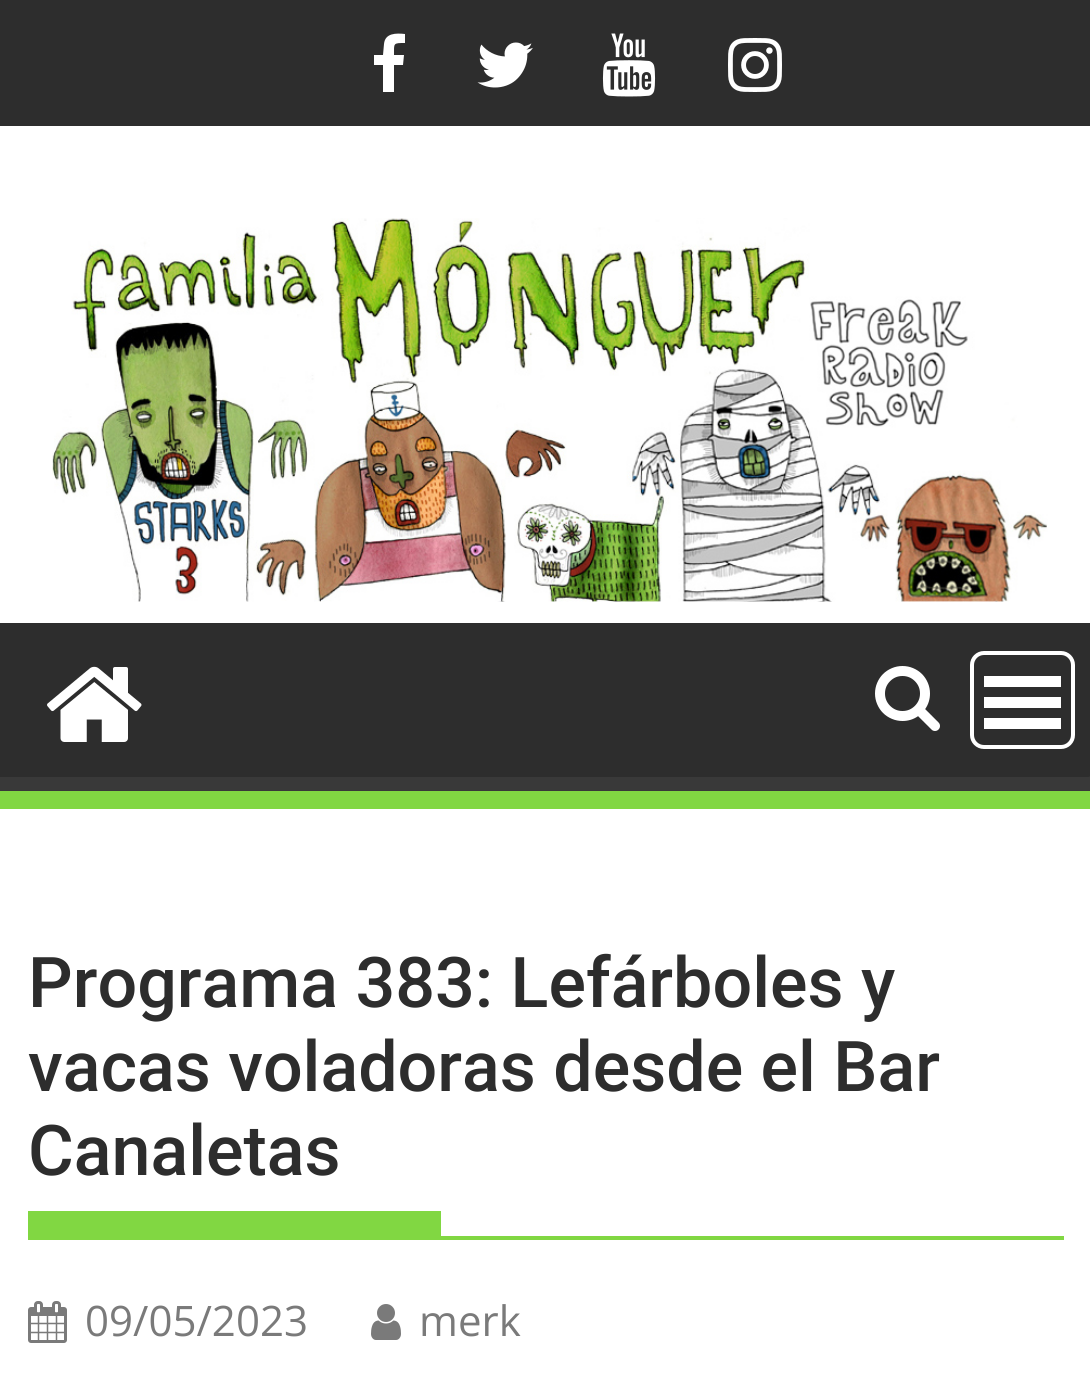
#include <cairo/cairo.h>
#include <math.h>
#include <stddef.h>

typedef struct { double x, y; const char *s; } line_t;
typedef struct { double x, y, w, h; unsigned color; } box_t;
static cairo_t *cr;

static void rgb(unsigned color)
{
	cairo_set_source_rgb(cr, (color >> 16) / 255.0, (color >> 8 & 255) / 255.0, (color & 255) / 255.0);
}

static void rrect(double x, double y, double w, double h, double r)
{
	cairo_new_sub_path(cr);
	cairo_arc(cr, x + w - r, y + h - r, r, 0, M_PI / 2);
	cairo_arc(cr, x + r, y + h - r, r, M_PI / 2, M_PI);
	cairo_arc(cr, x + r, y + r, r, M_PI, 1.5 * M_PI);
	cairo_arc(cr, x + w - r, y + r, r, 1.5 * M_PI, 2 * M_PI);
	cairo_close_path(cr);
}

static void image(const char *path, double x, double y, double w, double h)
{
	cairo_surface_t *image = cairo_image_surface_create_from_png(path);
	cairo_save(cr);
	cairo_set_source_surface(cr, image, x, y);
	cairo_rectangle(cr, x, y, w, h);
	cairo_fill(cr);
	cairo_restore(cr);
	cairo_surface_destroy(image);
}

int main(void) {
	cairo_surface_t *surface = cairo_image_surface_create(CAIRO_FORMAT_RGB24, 1090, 1393);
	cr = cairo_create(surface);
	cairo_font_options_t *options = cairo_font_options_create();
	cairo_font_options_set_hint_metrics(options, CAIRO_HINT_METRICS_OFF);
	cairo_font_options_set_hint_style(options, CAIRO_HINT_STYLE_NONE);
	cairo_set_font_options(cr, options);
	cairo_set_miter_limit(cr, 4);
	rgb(0xffffff);
	cairo_paint(cr);
	rgb(0x2d2d2d);
	cairo_rectangle(cr, 0, 0, 1090, 126);
	cairo_fill(cr);
	rgb(0xffffff);
	cairo_new_path(cr);
	cairo_move_to(cr, 405, 34);
	cairo_line_to(cr, 405, 43);
	cairo_curve_to(cr, 393, 43, 394, 43, 394, 55);
	cairo_line_to(cr, 404, 55);
	cairo_line_to(cr, 403, 65);
	cairo_line_to(cr, 394, 65);
	cairo_line_to(cr, 394, 92);
	cairo_line_to(cr, 383, 92);
	cairo_line_to(cr, 383, 65);
	cairo_line_to(cr, 374, 65);
	cairo_line_to(cr, 374, 55);
	cairo_line_to(cr, 383, 55);
	cairo_line_to(cr, 384, 44);
	cairo_curve_to(cr, 385, 33, 396, 33, 405, 34);
	cairo_close_path(cr);
	cairo_fill(cr);
	image("img/1.png", 477, 42, 56, 46);
	image("img/2.png", 602, 33, 54, 64);
	image("img/3.png", 728, 38, 54, 54);
	image("img/4.png", 52, 218, 996, 384);
	rgb(0x2d2d2d);
	cairo_rectangle(cr, 0, 623, 1090, 154);
	cairo_fill(cr);
	cairo_save(cr);
	cairo_rectangle(cr, 0, 623, 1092, 168);
	cairo_clip(cr);
	rgb(0x393939);
	cairo_set_fill_rule(cr, CAIRO_FILL_RULE_EVEN_ODD);
	cairo_new_path(cr);
	cairo_move_to(cr, -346, 276);
	cairo_line_to(cr, 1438, 276);
	cairo_line_to(cr, 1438, 1138);
	cairo_line_to(cr, -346, 1138);
	cairo_close_path(cr);
	cairo_move_to(cr, -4, 602);
	cairo_line_to(cr, 1088, 602);
	cairo_curve_to(cr, 1090, 602, 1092, 604, 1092, 606);
	cairo_line_to(cr, 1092, 774);
	cairo_curve_to(cr, 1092, 775, 1090, 777, 1088, 777);
	cairo_line_to(cr, -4, 777);
	cairo_curve_to(cr, -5, 777, -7, 775, -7, 774);
	cairo_line_to(cr, -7, 606);
	cairo_curve_to(cr, -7, 604, -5, 602, -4, 602);
	cairo_close_path(cr);
	cairo_fill(cr);
	cairo_restore(cr);
	rgb(0x81d742);
	cairo_rectangle(cr, 0, 791, 1090, 18);
	cairo_fill(cr);
	image("img/5.png", 47, 666, 95, 76);
	image("img/6.png", 875, 666, 65, 65);
	rrect(972, 653, 101, 94, 12);
	rgb(0xffffff);
	cairo_set_line_width(cr, 4);
	cairo_stroke(cr);
	{
		static const box_t items[] = {
			{984, 718, 77, 11, 0xffffff},
			{984, 697, 77, 11, 0xffffff},
			{984, 676, 77, 11, 0xffffff},
			{28, 1236, 1036, 4, 0x81d742},
			{28, 1211, 413, 25, 0x81d742},
		};
		for (size_t i = 0; i < sizeof items / sizeof *items; i++) {
			rgb(items[i].color);
			cairo_rectangle(cr, items[i].x, items[i].y, items[i].w, items[i].h);
			cairo_fill(cr);
		}
	}
	image("img/7.png", 28, 1301, 39, 42);
	image("img/8.png", 371, 1304, 30, 36);
	cairo_select_font_face(cr, "Roboto Medium", CAIRO_FONT_SLANT_NORMAL, CAIRO_FONT_WEIGHT_NORMAL);
	cairo_set_font_size(cr, 70);
	rgb(0x2d2d2d);
	{
		static const line_t items[] = {
			{28, 1007, "Programa 383: Lefárboles y"},
			{28, 1091, "vacas voladoras desde el Bar"},
			{28, 1175, "Canaletas"},
		};
		for (size_t i = 0; i < sizeof items / sizeof *items; i++) {
			cairo_move_to(cr, items[i].x, items[i].y);
			cairo_show_text(cr, items[i].s);
		}
	}
	cairo_select_font_face(cr, "Open Sans", CAIRO_FONT_SLANT_NORMAL, CAIRO_FONT_WEIGHT_NORMAL);
	cairo_set_font_size(cr, 42);
	rgb(0x7a7a7a);
	cairo_move_to(cr, 85, 1336);
	cairo_show_text(cr, "09/05/2023");
	cairo_move_to(cr, 419, 1336);
	cairo_show_text(cr, "merk");
	cairo_surface_write_to_png(surface, "page.png");
	cairo_font_options_destroy(options);
	cairo_destroy(cr);
	cairo_surface_destroy(surface);
	return 0;
}
